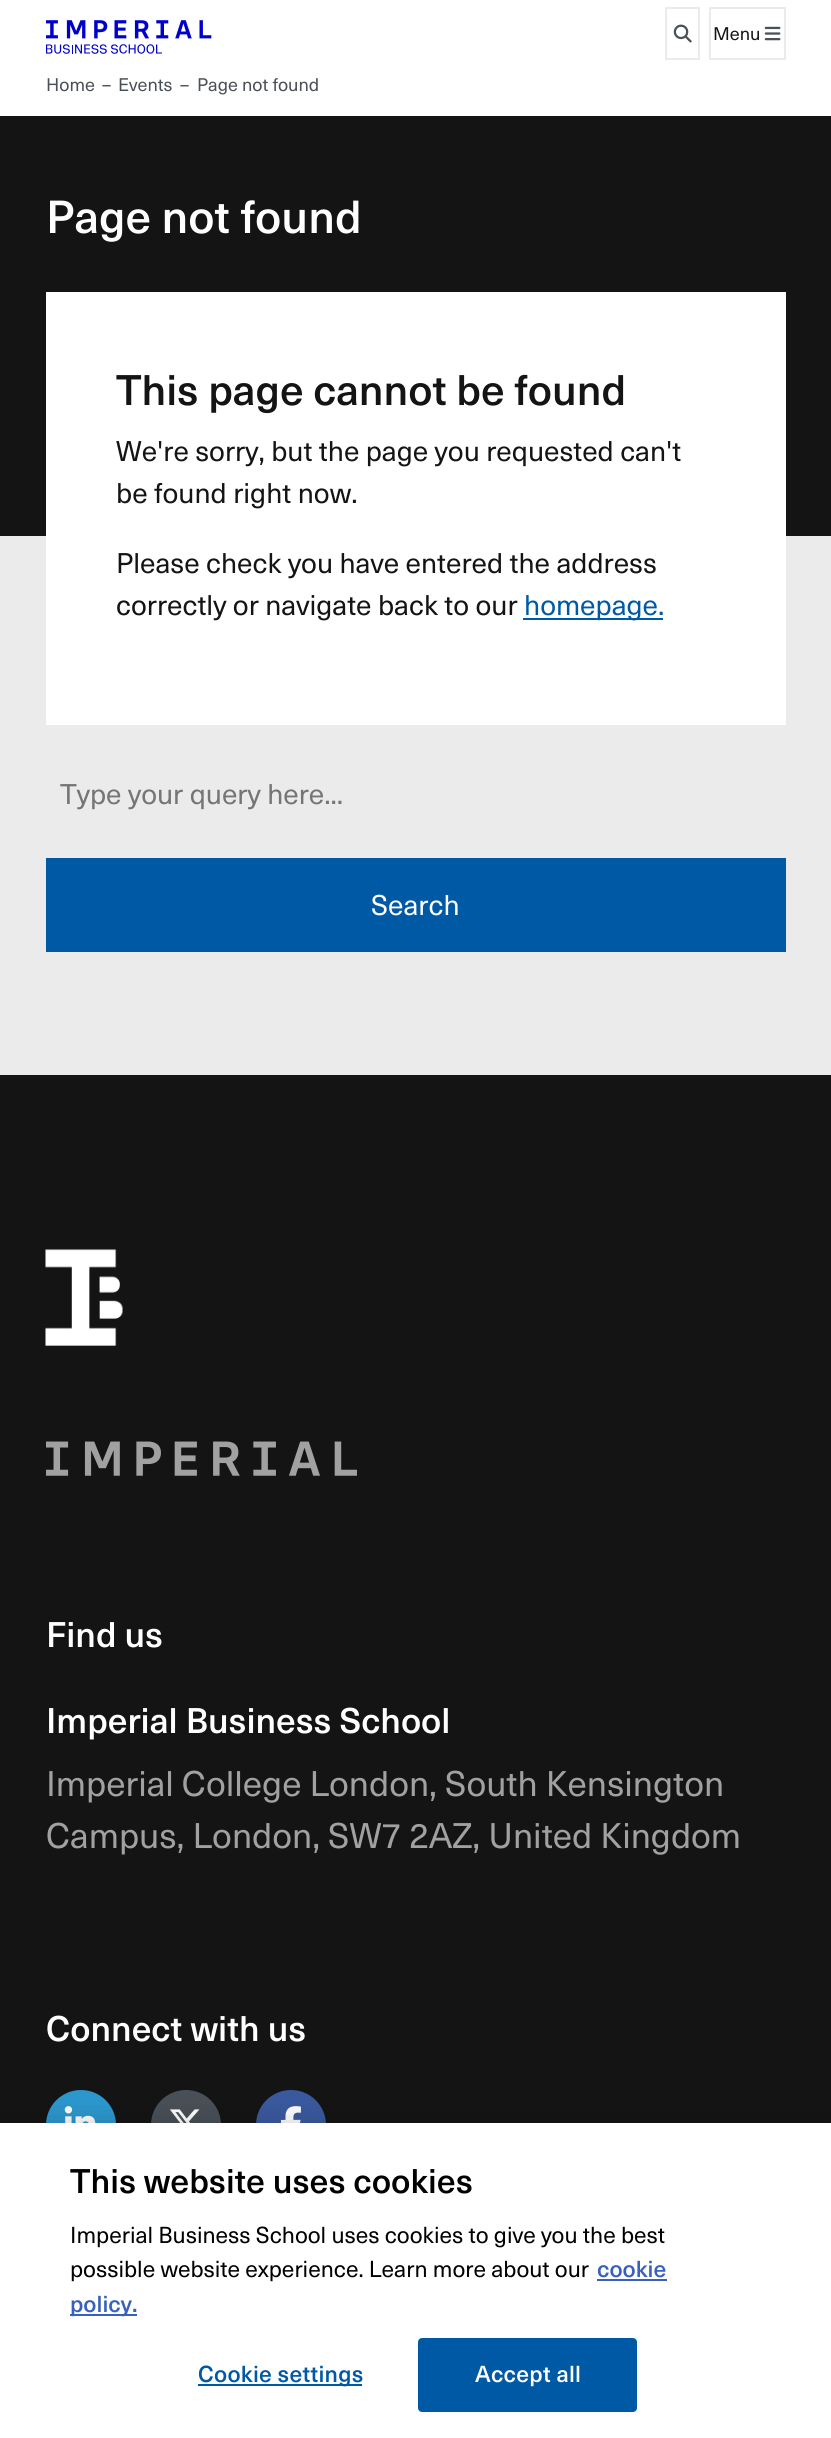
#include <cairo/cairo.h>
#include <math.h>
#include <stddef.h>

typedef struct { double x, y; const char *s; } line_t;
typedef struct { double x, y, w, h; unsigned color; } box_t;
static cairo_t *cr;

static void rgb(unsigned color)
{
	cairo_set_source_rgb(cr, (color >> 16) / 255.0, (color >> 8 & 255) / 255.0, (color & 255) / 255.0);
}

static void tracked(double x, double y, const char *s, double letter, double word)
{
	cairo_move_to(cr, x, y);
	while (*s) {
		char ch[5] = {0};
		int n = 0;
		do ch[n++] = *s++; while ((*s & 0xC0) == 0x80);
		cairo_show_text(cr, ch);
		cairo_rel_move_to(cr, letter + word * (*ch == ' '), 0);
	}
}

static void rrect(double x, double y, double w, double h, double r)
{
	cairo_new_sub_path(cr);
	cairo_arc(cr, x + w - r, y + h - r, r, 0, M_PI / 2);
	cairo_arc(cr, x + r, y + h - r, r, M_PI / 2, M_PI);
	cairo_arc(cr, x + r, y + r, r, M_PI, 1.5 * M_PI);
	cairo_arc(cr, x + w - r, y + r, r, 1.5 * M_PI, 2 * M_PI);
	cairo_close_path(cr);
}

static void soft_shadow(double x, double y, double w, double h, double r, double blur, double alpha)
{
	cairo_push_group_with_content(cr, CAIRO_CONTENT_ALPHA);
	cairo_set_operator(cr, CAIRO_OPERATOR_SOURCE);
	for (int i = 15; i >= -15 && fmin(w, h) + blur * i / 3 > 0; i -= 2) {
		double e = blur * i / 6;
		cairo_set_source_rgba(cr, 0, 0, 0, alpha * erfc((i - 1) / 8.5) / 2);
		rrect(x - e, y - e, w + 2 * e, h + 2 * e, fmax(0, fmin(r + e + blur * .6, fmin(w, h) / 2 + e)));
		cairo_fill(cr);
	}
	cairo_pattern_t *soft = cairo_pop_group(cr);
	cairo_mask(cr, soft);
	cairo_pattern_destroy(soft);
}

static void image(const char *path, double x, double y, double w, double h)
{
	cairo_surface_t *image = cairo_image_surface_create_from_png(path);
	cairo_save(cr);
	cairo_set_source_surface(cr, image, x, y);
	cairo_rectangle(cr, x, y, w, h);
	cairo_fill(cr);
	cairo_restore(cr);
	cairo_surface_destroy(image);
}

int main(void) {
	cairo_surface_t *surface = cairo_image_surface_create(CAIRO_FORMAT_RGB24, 831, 2438);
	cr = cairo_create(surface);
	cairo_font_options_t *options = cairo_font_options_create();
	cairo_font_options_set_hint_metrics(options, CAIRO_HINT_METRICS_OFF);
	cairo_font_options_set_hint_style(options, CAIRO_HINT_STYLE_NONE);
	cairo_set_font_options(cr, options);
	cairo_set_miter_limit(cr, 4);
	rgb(0xffffff);
	cairo_paint(cr);
	image("img/1.png", 46, 20, 166, 34);
	cairo_rectangle(cr, 666, 8, 33, 51);
	rgb(0xebebeb);
	cairo_stroke(cr);
	image("img/2.png", 673, 24, 19, 19);
	cairo_rectangle(cr, 710, 8, 75, 51);
	cairo_stroke(cr);
	image("img/3.png", 764, 26, 17, 15);
	{
		static const box_t items[] = {
			{0, 536, 831, 539, 0xebebeb},
			{0, 116, 831, 420, 0x141414},
			{46, 292, 740, 433, 0xffffff},
			{523, 618, 140, 2, 0x0059a5},
			{46, 858, 740, 94, 0x0059a5},
			{0, 1075, 831, 1048, 0x141414},
		};
		for (size_t i = 0; i < sizeof items / sizeof *items; i++) {
			rgb(items[i].color);
			cairo_rectangle(cr, items[i].x, items[i].y, items[i].w, items[i].h);
			cairo_fill(cr);
		}
	}
	image("img/4.png", 45, 1249, 78, 97);
	image("img/5.png", 46, 1441, 311, 35);
	rgb(0x2c98ce);
	cairo_arc(cr, 81, 2125, 35, 0, 2 * M_PI);
	cairo_fill(cr);
	image("img/6.png", 64, 2106, 32, 17);
	rgb(0x495057);
	cairo_arc(cr, 186, 2125, 35, 0, 2 * M_PI);
	cairo_fill(cr);
	image("img/7.png", 170, 2109, 30, 14);
	rgb(0x3a599f);
	cairo_arc(cr, 291, 2125, 35, 0, 2 * M_PI);
	cairo_fill(cr);
	image("img/8.png", 280, 2106, 21, 17);
	rgb(0x000000);
	soft_shadow(0, 2123, 831, 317, 0, 16, 0.2);
	{
		static const box_t items[] = {
			{0, 2123, 831, 315, 0xffffff},
			{597, 2279, 70, 2, 0x3860be},
			{70, 2314, 67, 2, 0x3860be},
			{198, 2384, 164, 2, 0x0059a5},
		};
		for (size_t i = 0; i < sizeof items / sizeof *items; i++) {
			rgb(items[i].color);
			cairo_rectangle(cr, items[i].x, items[i].y, items[i].w, items[i].h);
			cairo_fill(cr);
		}
	}
	rrect(419, 2339, 217, 72, 3);
	cairo_fill_preserve(cr);
	cairo_stroke(cr);
	cairo_select_font_face(cr, "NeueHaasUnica", CAIRO_FONT_SLANT_NORMAL, CAIRO_FONT_WEIGHT_NORMAL);
	cairo_set_font_size(cr, 18);
	rgb(0x141414);
	cairo_move_to(cr, 713, 40);
	cairo_show_text(cr, "Menu");
	rgb(0x495057);
	{
		static const line_t items[] = {
			{46, 91, "Home"},
			{102, 91, "–"},
			{118, 91, "Events"},
			{180, 91, "–"},
			{197, 91, "Page not found"},
		};
		for (size_t i = 0; i < sizeof items / sizeof *items; i++) {
			cairo_move_to(cr, items[i].x, items[i].y);
			cairo_show_text(cr, items[i].s);
		}
	}
	cairo_select_font_face(cr, "NeueHaasUnica Medium", CAIRO_FONT_SLANT_NORMAL, CAIRO_FONT_WEIGHT_NORMAL);
	cairo_set_font_size(cr, 45.5);
	rgb(0xffffff);
	cairo_move_to(cr, 46, 233);
	cairo_show_text(cr, "Page not found");
	cairo_set_font_size(cr, 42);
	rgb(0x141414);
	cairo_move_to(cr, 116, 405);
	cairo_show_text(cr, "This page cannot be found");
	cairo_select_font_face(cr, "NeueHaasUnica", CAIRO_FONT_SLANT_NORMAL, CAIRO_FONT_WEIGHT_NORMAL);
	cairo_set_font_size(cr, 28);
	{
		static const line_t items[] = {
			{116, 461, "We're sorry, but the page you requested can't"},
			{116, 503, "be found right now."},
			{116, 573, "Please check you have entered the address"},
			{116, 615, "correctly or navigate back to our"},
		};
		for (size_t i = 0; i < sizeof items / sizeof *items; i++) {
			cairo_move_to(cr, items[i].x, items[i].y);
			cairo_show_text(cr, items[i].s);
		}
	}
	rgb(0x0059a5);
	cairo_move_to(cr, 524, 615);
	cairo_show_text(cr, "homepage.");
	cairo_save(cr);
	cairo_rectangle(cr, 60, 775, 712, 37);
	cairo_clip(cr);
	rgb(0x757575);
	cairo_move_to(cr, 60, 804);
	cairo_show_text(cr, "Type your query here...");
	cairo_restore(cr);
	rgb(0xffffff);
	cairo_move_to(cr, 371, 915);
	cairo_show_text(cr, "Search");
	cairo_select_font_face(cr, "NeueHaasUnica Medium", CAIRO_FONT_SLANT_NORMAL, CAIRO_FONT_WEIGHT_NORMAL);
	cairo_set_font_size(cr, 35);
	cairo_move_to(cr, 46, 1647);
	cairo_show_text(cr, "Find us");
	cairo_move_to(cr, 46, 1733);
	cairo_show_text(cr, "Imperial Business School");
	cairo_select_font_face(cr, "NeueHaasUnica", CAIRO_FONT_SLANT_NORMAL, CAIRO_FONT_WEIGHT_NORMAL);
	rgb(0xa1a1a1);
	cairo_move_to(cr, 46, 1796);
	cairo_show_text(cr, "Imperial College London, South Kensington");
	cairo_move_to(cr, 46, 1848);
	cairo_show_text(cr, "Campus, London, SW7 2AZ, United Kingdom");
	cairo_select_font_face(cr, "NeueHaasUnica Medium", CAIRO_FONT_SLANT_NORMAL, CAIRO_FONT_WEIGHT_NORMAL);
	rgb(0xffffff);
	cairo_move_to(cr, 46, 2041);
	cairo_show_text(cr, "Connect with us");
	cairo_save(cr);
	cairo_rectangle(cr, 70, 2158, 655, 163);
	cairo_clip(cr);
	cairo_set_font_size(cr, 33.6);
	rgb(0x000000);
	cairo_move_to(cr, 70, 2193);
	cairo_show_text(cr, "This website uses cookies");
	cairo_restore(cr);
	cairo_select_font_face(cr, "NeueHaasUnica", CAIRO_FONT_SLANT_NORMAL, CAIRO_FONT_WEIGHT_NORMAL);
	cairo_set_font_size(cr, 22.75);
	rgb(0x000000);
	cairo_move_to(cr, 70, 2243);
	cairo_show_text(cr, "Imperial Business School uses cookies to give you the best");
	cairo_move_to(cr, 70, 2277);
	cairo_show_text(cr, "possible website experience. Learn more about our");
	cairo_select_font_face(cr, "NeueHaasUnica Medium", CAIRO_FONT_SLANT_NORMAL, CAIRO_FONT_WEIGHT_NORMAL);
	rgb(0x3860be);
	cairo_move_to(cr, 597, 2277);
	cairo_show_text(cr, "cookie");
	cairo_move_to(cr, 70, 2312);
	cairo_show_text(cr, "policy.");
	rgb(0x0059a5);
	tracked(198, 2382, "Cookie settings", 0.25, 0);
	rgb(0xffffff);
	tracked(475, 2382, "Accept all", 0.25, 0);
	cairo_surface_write_to_png(surface, "page.png");
	cairo_font_options_destroy(options);
	cairo_destroy(cr);
	cairo_surface_destroy(surface);
	return 0;
}
